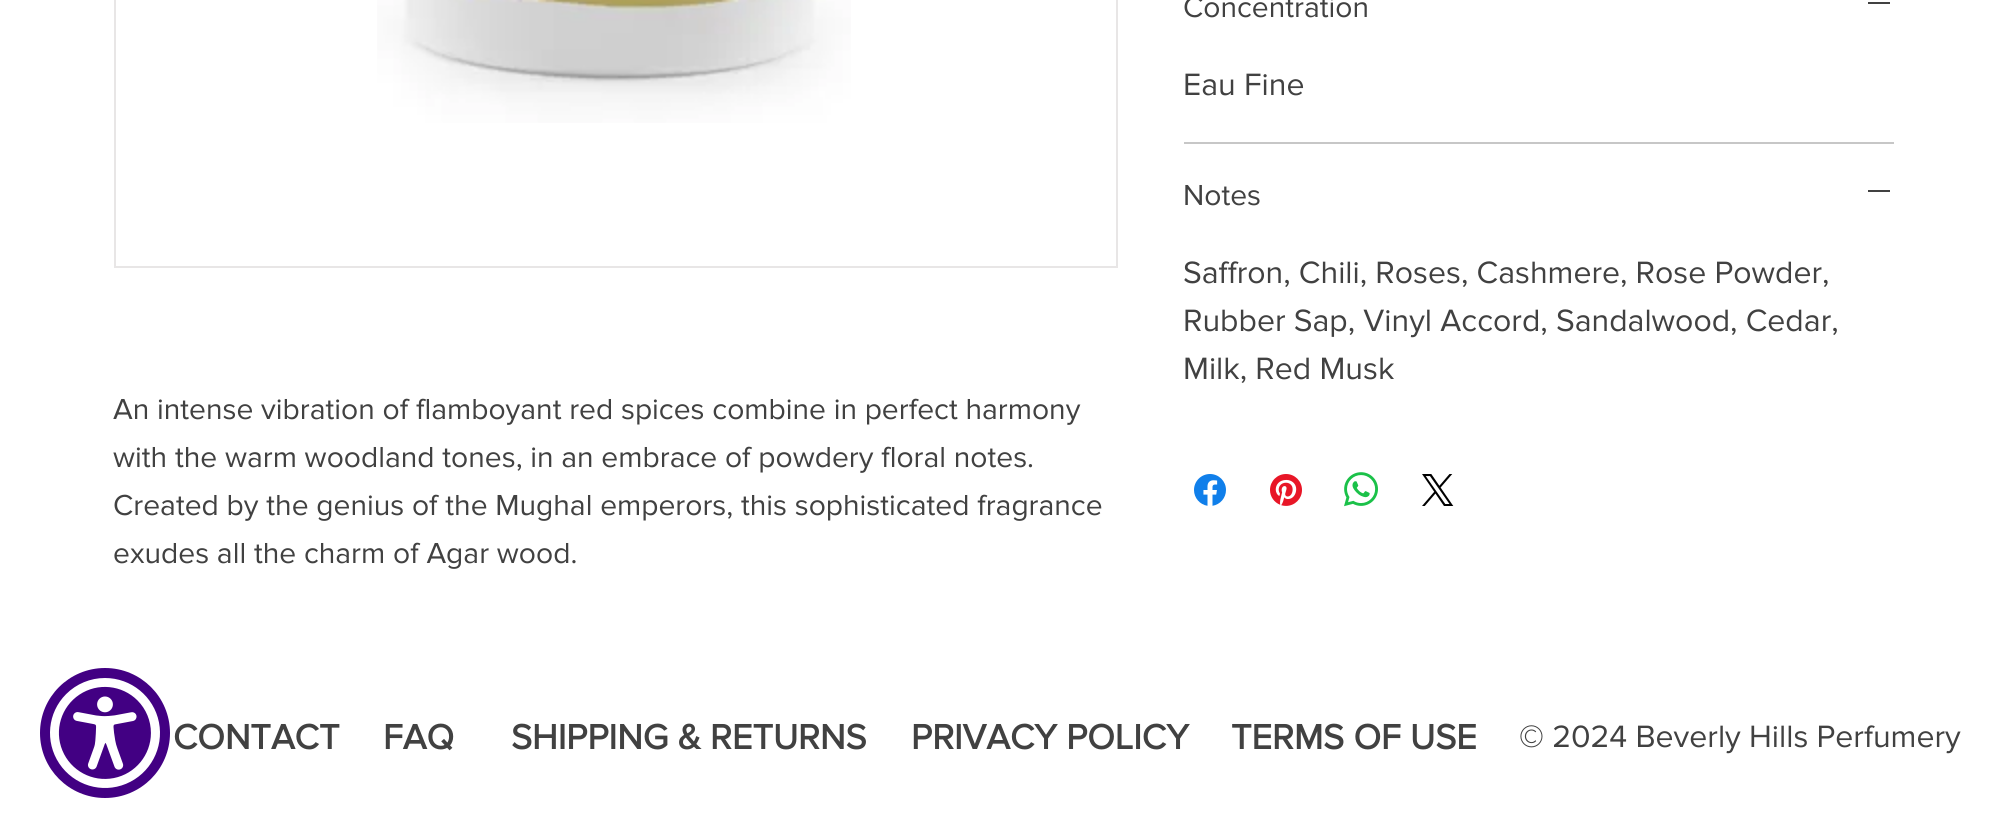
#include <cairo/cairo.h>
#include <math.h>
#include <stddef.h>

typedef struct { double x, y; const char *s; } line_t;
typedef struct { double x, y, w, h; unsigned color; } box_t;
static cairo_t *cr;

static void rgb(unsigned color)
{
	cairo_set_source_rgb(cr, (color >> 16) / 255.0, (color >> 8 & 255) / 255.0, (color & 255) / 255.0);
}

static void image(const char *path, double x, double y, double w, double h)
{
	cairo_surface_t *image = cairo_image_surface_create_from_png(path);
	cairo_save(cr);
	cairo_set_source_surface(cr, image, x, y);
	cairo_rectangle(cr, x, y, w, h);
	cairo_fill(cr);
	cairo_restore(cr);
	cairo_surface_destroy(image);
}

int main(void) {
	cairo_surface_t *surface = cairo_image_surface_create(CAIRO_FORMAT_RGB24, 2005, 838);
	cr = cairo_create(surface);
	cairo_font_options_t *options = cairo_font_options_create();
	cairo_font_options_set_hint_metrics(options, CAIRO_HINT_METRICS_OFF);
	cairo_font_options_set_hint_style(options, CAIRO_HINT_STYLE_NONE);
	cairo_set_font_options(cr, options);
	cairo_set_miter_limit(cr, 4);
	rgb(0xffffff);
	cairo_paint(cr);
	rgb(0x420083);
	cairo_arc(cr, 105, 733, 65, 0, 2 * M_PI);
	cairo_fill(cr);
	image("img/1.png", 50, 678, 110, 110);
	{
		static const box_t items[] = {
			{1184, 142, 710, 2, 0xc7c7c7},
			{1868, 2, 22, 2, 0x414141},
			{1868, 190, 22, 2, 0x414141},
		};
		for (size_t i = 0; i < sizeof items / sizeof *items; i++) {
			rgb(items[i].color);
			cairo_rectangle(cr, items[i].x, items[i].y, items[i].w, items[i].h);
			cairo_fill(cr);
		}
	}
	image("img/2.png", 1194, 474, 32, 32);
	image("img/3.png", 1270, 474, 32, 32);
	image("img/4.png", 1344, 472, 34, 35);
	image("img/5.png", 1422, 474, 32, 32);
	cairo_rectangle(cr, 115, -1, 1002, 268);
	rgb(0xe8e6e6);
	cairo_stroke(cr);
	image("img/6.png", 377, 0, 474, 123);
	cairo_select_font_face(cr, "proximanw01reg", CAIRO_FONT_SLANT_NORMAL, CAIRO_FONT_WEIGHT_NORMAL);
	cairo_set_font_size(cr, 30);
	rgb(0x414141);
	cairo_move_to(cr, 1183, 17);
	cairo_show_text(cr, "Concentration");
	cairo_set_font_size(cr, 32);
	cairo_move_to(cr, 1183, 95);
	cairo_show_text(cr, "Eau Fine");
	cairo_set_font_size(cr, 30);
	cairo_move_to(cr, 1183, 205);
	cairo_show_text(cr, "Notes");
	cairo_set_font_size(cr, 32);
	{
		static const line_t items[] = {
			{1183, 283, "Saffron, Chili, Roses, Cashmere, Rose Powder,"},
			{1183, 331, "Rubber Sap, Vinyl Accord, Sandalwood, Cedar,"},
			{1183, 379, "Milk, Red Musk"},
		};
		for (size_t i = 0; i < sizeof items / sizeof *items; i++) {
			cairo_move_to(cr, items[i].x, items[i].y);
			cairo_show_text(cr, items[i].s);
		}
	}
	cairo_set_font_size(cr, 30);
	{
		static const line_t items[] = {
			{113, 419, "An intense vibration of flamboyant red spices combine in perfect harmony"},
			{113, 467, "with the warm woodland tones, in an embrace of powdery floral notes."},
			{113, 515, "Created by the genius of the Mughal emperors, this sophisticated fragrance"},
			{113, 563, "exudes all the charm of Agar wood."},
		};
		for (size_t i = 0; i < sizeof items / sizeof *items; i++) {
			cairo_move_to(cr, items[i].x, items[i].y);
			cairo_show_text(cr, items[i].s);
		}
	}
	cairo_select_font_face(cr, "proximanw01reg", CAIRO_FONT_SLANT_NORMAL, CAIRO_FONT_WEIGHT_BOLD);
	cairo_set_font_size(cr, 36);
	{
		static const line_t items[] = {
			{173, 749, "CONTACT"},
			{383, 749, "FAQ"},
			{511, 749, "SHIPPING & RETURNS"},
			{911, 749, "PRIVACY POLICY"},
			{1231, 749, "TERMS OF USE"},
		};
		for (size_t i = 0; i < sizeof items / sizeof *items; i++) {
			cairo_move_to(cr, items[i].x, items[i].y);
			cairo_show_text(cr, items[i].s);
		}
	}
	cairo_select_font_face(cr, "proximanw01reg", CAIRO_FONT_SLANT_NORMAL, CAIRO_FONT_WEIGHT_NORMAL);
	cairo_set_font_size(cr, 32);
	cairo_move_to(cr, 1519, 747);
	cairo_show_text(cr, "© 2024 Beverly Hills Perfumery");
	cairo_surface_write_to_png(surface, "page.png");
	cairo_font_options_destroy(options);
	cairo_destroy(cr);
	cairo_surface_destroy(surface);
	return 0;
}
